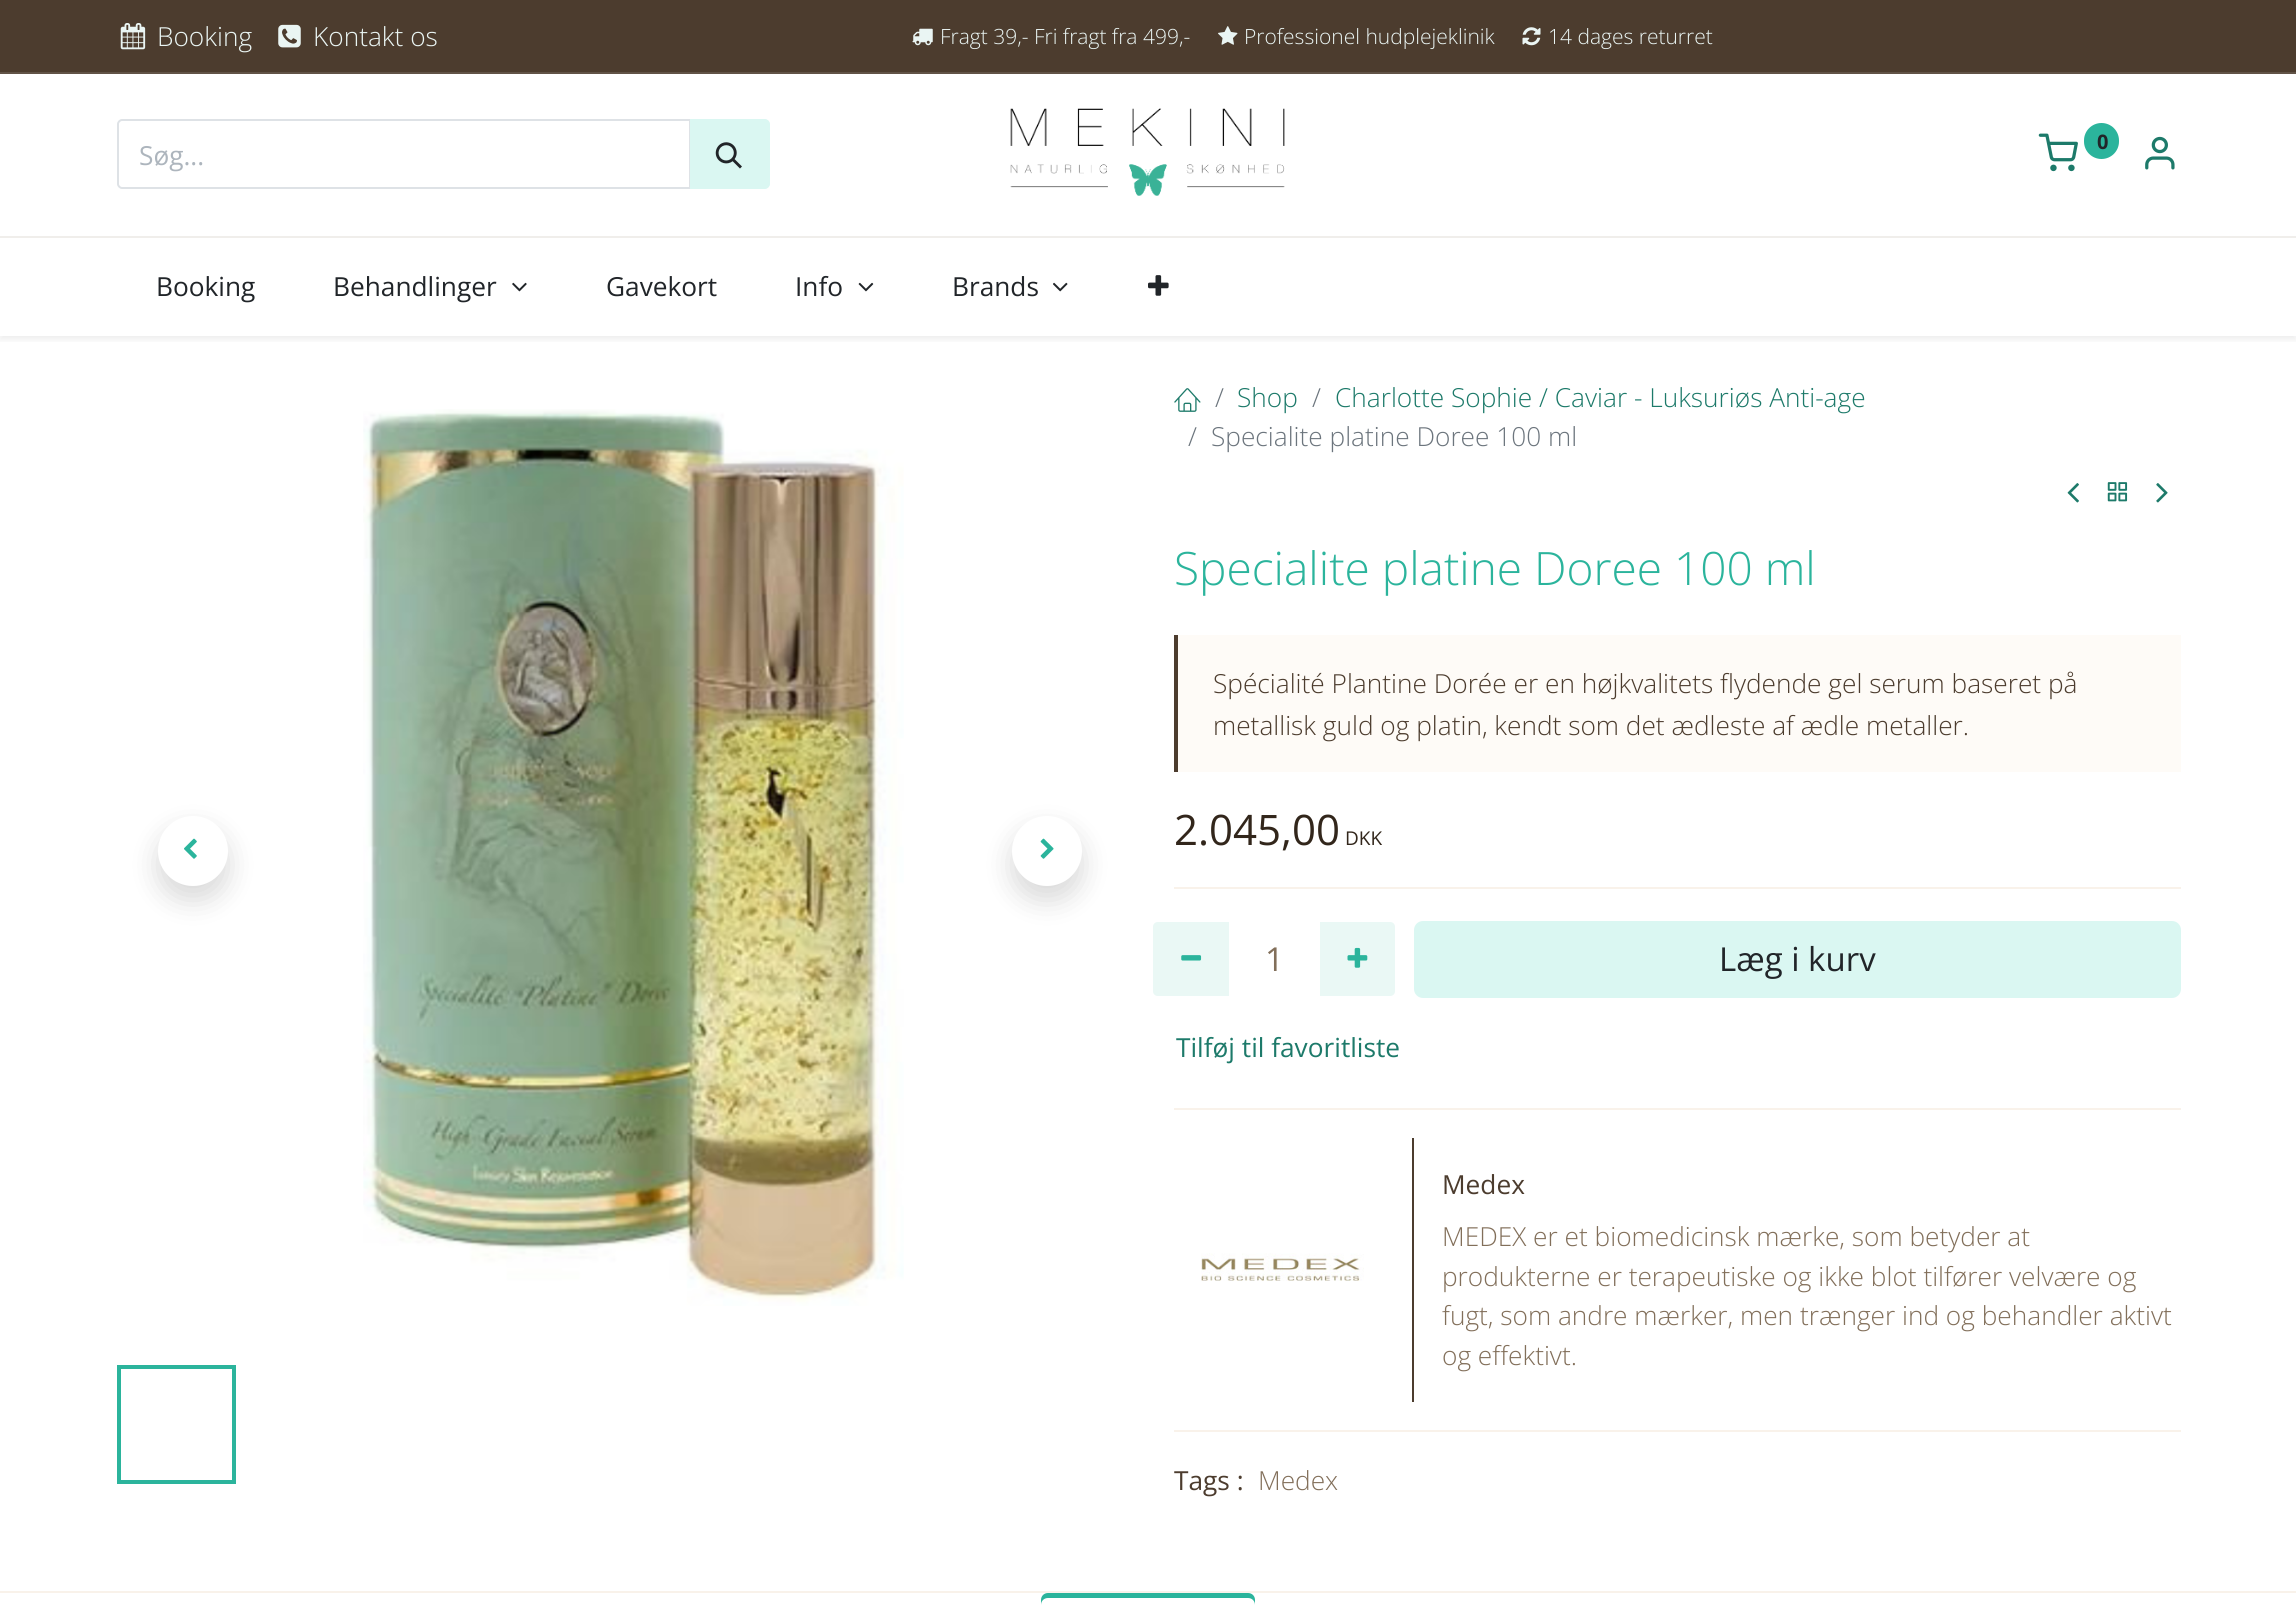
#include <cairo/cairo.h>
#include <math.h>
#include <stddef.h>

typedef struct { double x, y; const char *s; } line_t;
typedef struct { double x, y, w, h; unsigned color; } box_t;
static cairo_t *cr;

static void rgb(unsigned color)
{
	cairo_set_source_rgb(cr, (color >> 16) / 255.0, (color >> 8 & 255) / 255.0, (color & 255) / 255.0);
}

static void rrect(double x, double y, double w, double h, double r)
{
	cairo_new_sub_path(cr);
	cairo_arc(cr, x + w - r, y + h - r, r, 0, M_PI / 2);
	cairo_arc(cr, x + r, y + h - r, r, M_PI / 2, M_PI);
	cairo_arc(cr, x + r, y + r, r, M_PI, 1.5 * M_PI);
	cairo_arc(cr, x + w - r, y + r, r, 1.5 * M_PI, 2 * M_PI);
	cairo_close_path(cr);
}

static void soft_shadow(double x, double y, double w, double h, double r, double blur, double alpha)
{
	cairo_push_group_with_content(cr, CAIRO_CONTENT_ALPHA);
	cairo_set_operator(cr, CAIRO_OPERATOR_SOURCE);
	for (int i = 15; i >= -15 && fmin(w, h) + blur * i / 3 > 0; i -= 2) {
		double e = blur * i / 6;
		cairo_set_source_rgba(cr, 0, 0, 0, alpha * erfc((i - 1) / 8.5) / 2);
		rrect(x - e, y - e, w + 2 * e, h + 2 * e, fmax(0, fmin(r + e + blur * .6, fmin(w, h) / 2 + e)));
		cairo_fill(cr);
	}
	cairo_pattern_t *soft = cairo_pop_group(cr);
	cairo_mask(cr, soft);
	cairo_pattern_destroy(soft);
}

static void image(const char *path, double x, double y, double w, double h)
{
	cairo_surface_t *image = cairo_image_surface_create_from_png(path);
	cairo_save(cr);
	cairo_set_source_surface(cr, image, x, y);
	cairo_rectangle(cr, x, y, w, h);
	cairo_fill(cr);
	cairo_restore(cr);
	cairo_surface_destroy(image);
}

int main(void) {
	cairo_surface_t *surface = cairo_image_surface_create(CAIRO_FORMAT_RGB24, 2296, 1614);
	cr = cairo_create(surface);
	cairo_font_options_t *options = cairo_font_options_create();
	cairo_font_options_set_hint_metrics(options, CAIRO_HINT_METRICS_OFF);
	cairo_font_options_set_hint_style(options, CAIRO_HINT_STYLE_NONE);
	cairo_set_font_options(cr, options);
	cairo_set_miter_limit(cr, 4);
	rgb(0xffffff);
	cairo_paint(cr);
	rgb(0x4c3c2e);
	cairo_rectangle(cr, 0, 0, 2296, 72);
	cairo_fill(cr);
	rgb(0x615347);
	cairo_rectangle(cr, 0, 72, 2296, 2);
	cairo_fill(cr);
	image("img/1.png", 120, 23, 26, 27);
	image("img/2.png", 278, 24, 23, 24);
	image("img/3.png", 912, 28, 21, 18);
	image("img/4.png", 1218, 26, 20, 19);
	image("img/5.png", 1522, 27, 19, 19);
	rgb(0xf0eeeb);
	cairo_rectangle(cr, 0, 236, 2296, 2);
	cairo_fill(cr);
	image("img/6.png", 1010, 108, 275, 88);
	image("img/7.png", 2038, 133, 40, 39);
	rgb(0x2bb49c);
	rrect(2084, 123, 35, 36, 17.5);
	cairo_fill(cr);
	image("img/8.png", 2145, 136, 30, 34);
	cairo_new_path(cr);
	cairo_move_to(cr, 122, 120);
	cairo_line_to(cr, 690, 120);
	cairo_line_to(cr, 690, 188);
	cairo_line_to(cr, 122, 188);
	cairo_curve_to(cr, 120, 188, 118, 186, 118, 184);
	cairo_line_to(cr, 118, 124);
	cairo_curve_to(cr, 118, 122, 120, 120, 122, 120);
	cairo_close_path(cr);
	rgb(0xdee2e6);
	cairo_stroke(cr);
	rgb(0xdaf7f2);
	cairo_new_path(cr);
	cairo_move_to(cr, 691, 120);
	cairo_line_to(cr, 765, 120);
	cairo_curve_to(cr, 767, 120, 769, 122, 769, 124);
	cairo_line_to(cr, 769, 184);
	cairo_curve_to(cr, 769, 186, 767, 188, 765, 188);
	cairo_line_to(cr, 691, 188);
	cairo_close_path(cr);
	cairo_fill_preserve(cr);
	cairo_stroke(cr);
	image("img/9.png", 715, 142, 27, 27);
	cairo_save(cr);
	cairo_rectangle(cr, 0, 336, 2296, 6);
	cairo_clip(cr);
	rgb(0x000000);
	soft_shadow(0, 242, 2296, 98, 0, 3.5, 0.07);
	cairo_restore(cr);
	image("img/10.png", 512, 282, 15, 10);
	image("img/11.png", 858, 282, 16, 10);
	image("img/12.png", 1053, 282, 15, 10);
	image("img/13.png", 1148, 275, 21, 21);
	rgb(0x000000);
	soft_shadow(158, 830, 70, 70, 35, 14, 0.15);
	rgb(0xffffff);
	cairo_arc(cr, 193, 851, 35, 0, 2 * M_PI);
	cairo_fill(cr);
	image("img/14.png", 184, 838, 13, 21);
	image("img/15.png", 363, 409, 541, 897);
	rgb(0x000000);
	soft_shadow(1012, 830, 70, 70, 35, 14, 0.15);
	rgb(0xffffff);
	cairo_arc(cr, 1047, 851, 35, 0, 2 * M_PI);
	cairo_fill(cr);
	image("img/16.png", 1040, 838, 14, 21);
	cairo_rectangle(cr, 119, 1367, 115, 115);
	rgb(0x2bb49c);
	cairo_set_line_width(cr, 4);
	cairo_stroke(cr);
	image("img/17.png", 1174, 388, 27, 24);
	image("img/18.png", 2067, 483, 12, 20);
	image("img/19.png", 2107, 482, 21, 20);
	image("img/20.png", 2156, 483, 12, 20);
	{
		static const box_t items[] = {
			{1178, 635, 1003, 137, 0xfefbf7},
			{1174, 635, 4, 137, 0x4c3c2e},
			{1174, 887, 1007, 2, 0xf9f2ea},
		};
		for (size_t i = 0; i < sizeof items / sizeof *items; i++) {
			rgb(items[i].color);
			cairo_rectangle(cr, items[i].x, items[i].y, items[i].w, items[i].h);
			cairo_fill(cr);
		}
	}
	rgb(0xeaf8f5);
	cairo_new_path(cr);
	cairo_move_to(cr, 1158, 922);
	cairo_line_to(cr, 1229, 922);
	cairo_line_to(cr, 1229, 996);
	cairo_line_to(cr, 1158, 996);
	cairo_curve_to(cr, 1155, 996, 1153, 994, 1153, 991);
	cairo_line_to(cr, 1153, 927);
	cairo_curve_to(cr, 1153, 924, 1155, 922, 1158, 922);
	cairo_close_path(cr);
	cairo_fill(cr);
	image("img/21.png", 1181, 955, 21, 6);
	cairo_new_path(cr);
	cairo_move_to(cr, 1320, 922);
	cairo_line_to(cr, 1390, 922);
	cairo_curve_to(cr, 1393, 922, 1395, 924, 1395, 927);
	cairo_line_to(cr, 1395, 991);
	cairo_curve_to(cr, 1395, 994, 1393, 996, 1390, 996);
	cairo_line_to(cr, 1320, 996);
	cairo_close_path(cr);
	cairo_fill(cr);
	image("img/22.png", 1347, 947, 21, 21);
	rgb(0xdaf7f2);
	rrect(1415, 922, 765, 75, 8);
	cairo_fill_preserve(cr);
	cairo_set_line_width(cr, 2);
	cairo_stroke(cr);
	rgb(0xf9f2ea);
	cairo_rectangle(cr, 1174, 1108, 1007, 2);
	cairo_fill(cr);
	image("img/23.png", 1201, 1253, 163, 28);
	{
		static const box_t items[] = {
			{1412, 1138, 2, 264, 0x4c3c2e},
			{1174, 1430, 1007, 2, 0xf9f2ea},
			{0, 1591, 2296, 2, 0xf9f2ea},
		};
		for (size_t i = 0; i < sizeof items / sizeof *items; i++) {
			rgb(items[i].color);
			cairo_rectangle(cr, items[i].x, items[i].y, items[i].w, items[i].h);
			cairo_fill(cr);
		}
	}
	rgb(0x2bb49c);
	cairo_new_path(cr);
	cairo_move_to(cr, 1048, 1598);
	cairo_line_to(cr, 1248, 1598);
	cairo_curve_to(cr, 1252, 1598, 1255, 1601, 1255, 1605);
	cairo_line_to(cr, 1255, 1600);
	cairo_curve_to(cr, 1255, 1596, 1252, 1593, 1248, 1593);
	cairo_line_to(cr, 1048, 1593);
	cairo_curve_to(cr, 1044, 1593, 1041, 1596, 1041, 1600);
	cairo_line_to(cr, 1041, 1605);
	cairo_curve_to(cr, 1041, 1601, 1044, 1598, 1048, 1598);
	cairo_close_path(cr);
	cairo_fill(cr);
	cairo_select_font_face(cr, "Open Sans Light", CAIRO_FONT_SLANT_NORMAL, CAIRO_FONT_WEIGHT_NORMAL);
	cairo_set_font_size(cr, 26.25);
	rgb(0xeaf5f3);
	cairo_move_to(cr, 157, 46);
	cairo_show_text(cr, "Booking");
	cairo_move_to(cr, 313, 46);
	cairo_show_text(cr, "Kontakt os");
	cairo_set_font_size(cr, 21);
	{
		static const line_t items[] = {
			{940, 44, "Fragt 39,- Fri fragt fra 499,-"},
			{1244, 44, "Professionel hudplejeklinik"},
			{1548, 44, "14 dages returret"},
		};
		for (size_t i = 0; i < sizeof items / sizeof *items; i++) {
			cairo_move_to(cr, items[i].x, items[i].y);
			cairo_show_text(cr, items[i].s);
		}
	}
	cairo_select_font_face(cr, "Open Sans", CAIRO_FONT_SLANT_NORMAL, CAIRO_FONT_WEIGHT_BOLD);
	cairo_set_font_size(cr, 20);
	rgb(0x212529);
	cairo_move_to(cr, 2097, 149);
	cairo_show_text(cr, "0");
	cairo_select_font_face(cr, "Open Sans", CAIRO_FONT_SLANT_NORMAL, CAIRO_FONT_WEIGHT_NORMAL);
	cairo_set_font_size(cr, 26.25);
	rgb(0xadb5bd);
	cairo_move_to(cr, 139, 165);
	cairo_show_text(cr, "Søg...");
	rgb(0x212529);
	{
		static const line_t items[] = {
			{156, 296, "Booking"},
			{333, 296, "Behandlinger"},
			{606, 296, "Gavekort"},
			{795, 296, "Info"},
			{952, 296, "Brands"},
		};
		for (size_t i = 0; i < sizeof items / sizeof *items; i++) {
			cairo_move_to(cr, items[i].x, items[i].y);
			cairo_show_text(cr, items[i].s);
		}
	}
	cairo_select_font_face(cr, "Open Sans Light", CAIRO_FONT_SLANT_NORMAL, CAIRO_FONT_WEIGHT_NORMAL);
	rgb(0x6c757d);
	cairo_move_to(cr, 1215, 407);
	cairo_show_text(cr, "/");
	rgb(0x1d7a6a);
	cairo_move_to(cr, 1237, 407);
	cairo_show_text(cr, "Shop");
	rgb(0x6c757d);
	cairo_move_to(cr, 1312, 407);
	cairo_show_text(cr, "/");
	rgb(0x1d7a6a);
	cairo_move_to(cr, 1335, 407);
	cairo_show_text(cr, "Charlotte Sophie / Caviar - Luksuriøs Anti-age");
	rgb(0x6c757d);
	cairo_move_to(cr, 1188, 446);
	cairo_show_text(cr, "/");
	cairo_move_to(cr, 1211, 446);
	cairo_show_text(cr, "Specialite platine Doree 100 ml");
	cairo_set_font_size(cr, 46);
	rgb(0x2bb49c);
	cairo_move_to(cr, 1174, 585);
	cairo_show_text(cr, "Specialite platine Doree 100 ml");
	cairo_set_font_size(cr, 26.25);
	rgb(0x4c3c2e);
	cairo_move_to(cr, 1213, 693);
	cairo_show_text(cr, "Spécialité Plantine Dorée er en højkvalitets flydende gel serum baseret på");
	cairo_move_to(cr, 1213, 735);
	cairo_show_text(cr, "metallisk guld og platin, kendt som det ædleste af ædle metaller.");
	cairo_select_font_face(cr, "Open Sans", CAIRO_FONT_SLANT_NORMAL, CAIRO_FONT_WEIGHT_NORMAL);
	cairo_set_font_size(cr, 42);
	rgb(0x32261b);
	cairo_move_to(cr, 1174, 845);
	cairo_show_text(cr, "2.045,00");
	cairo_set_font_size(cr, 19);
	cairo_move_to(cr, 1345, 845);
	cairo_show_text(cr, "DKK");
	cairo_set_font_size(cr, 33);
	rgb(0x826f5a);
	cairo_move_to(cr, 1265, 971);
	cairo_show_text(cr, "1");
	rgb(0x212529);
	cairo_move_to(cr, 1719, 971);
	cairo_show_text(cr, "Læg i kurv");
	cairo_set_font_size(cr, 26.25);
	rgb(0x1d7a6a);
	cairo_move_to(cr, 1176, 1057);
	cairo_show_text(cr, "Tilføj til favoritliste");
	rgb(0x4c3c2e);
	cairo_move_to(cr, 1442, 1194);
	cairo_show_text(cr, "Medex");
	cairo_select_font_face(cr, "Open Sans Light", CAIRO_FONT_SLANT_NORMAL, CAIRO_FONT_WEIGHT_NORMAL);
	rgb(0x826f5a);
	{
		static const line_t items[] = {
			{1442, 1246, "MEDEX er et biomedicinsk mærke, som betyder at"},
			{1442, 1286, "produkterne er terapeutiske og ikke blot tilfører velvære og"},
			{1442, 1325, "fugt, som andre mærker, men trænger ind og behandler aktivt"},
			{1442, 1365, "og effektivt."},
		};
		for (size_t i = 0; i < sizeof items / sizeof *items; i++) {
			cairo_move_to(cr, items[i].x, items[i].y);
			cairo_show_text(cr, items[i].s);
		}
	}
	cairo_select_font_face(cr, "Open Sans", CAIRO_FONT_SLANT_NORMAL, CAIRO_FONT_WEIGHT_NORMAL);
	rgb(0x4c3c2e);
	cairo_move_to(cr, 1174, 1490);
	cairo_show_text(cr, "Tags :");
	cairo_select_font_face(cr, "Open Sans Light", CAIRO_FONT_SLANT_NORMAL, CAIRO_FONT_WEIGHT_NORMAL);
	rgb(0x826f5a);
	cairo_move_to(cr, 1258, 1490);
	cairo_show_text(cr, "Medex");
	cairo_surface_write_to_png(surface, "page.png");
	cairo_font_options_destroy(options);
	cairo_destroy(cr);
	cairo_surface_destroy(surface);
	return 0;
}
